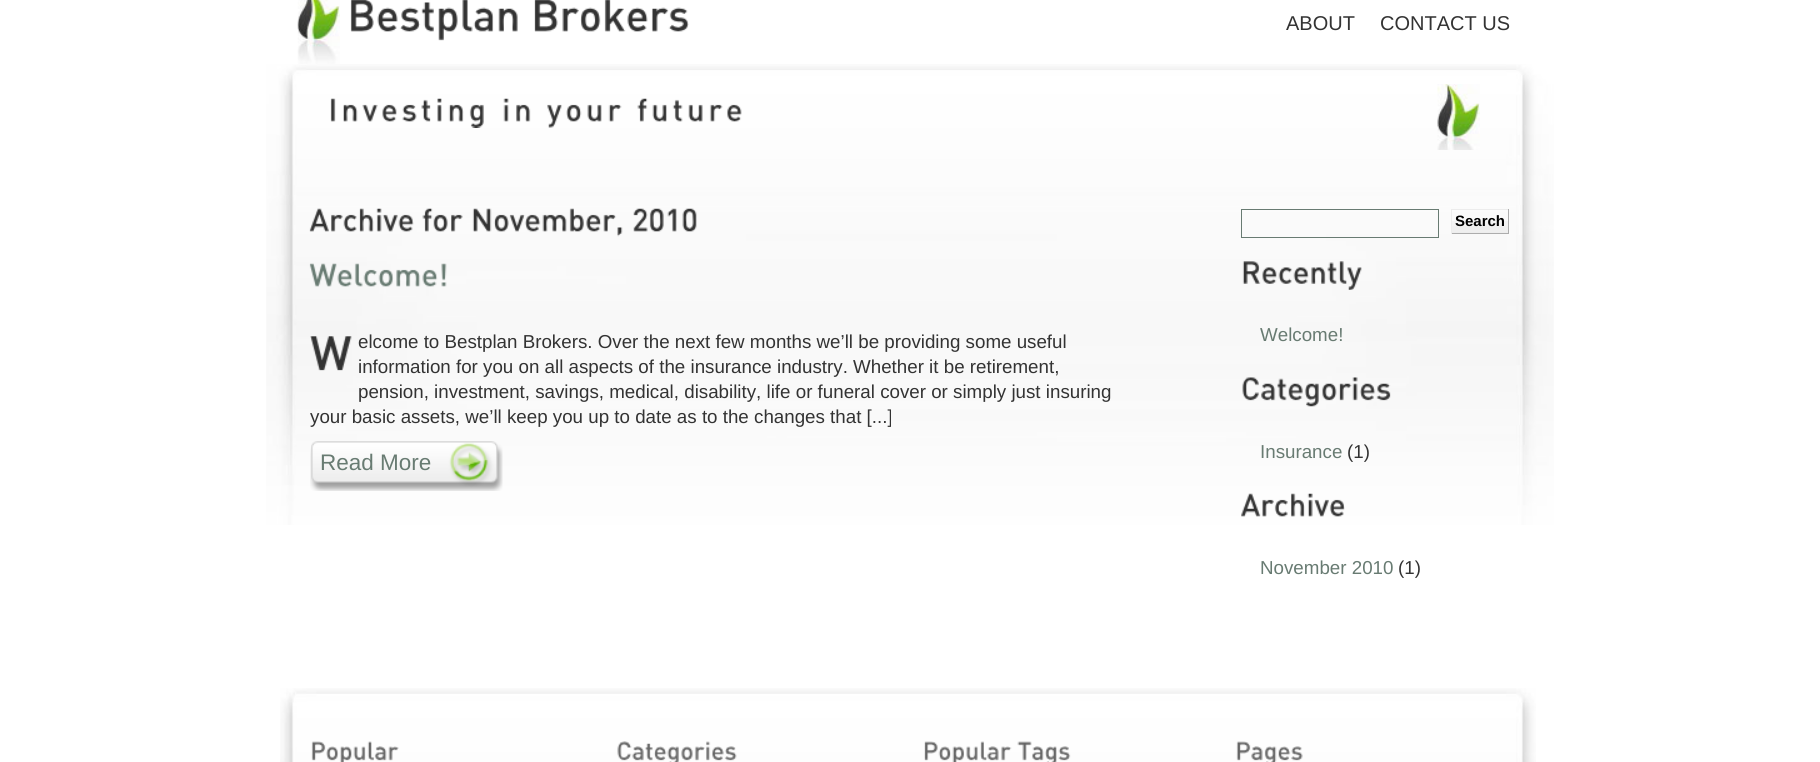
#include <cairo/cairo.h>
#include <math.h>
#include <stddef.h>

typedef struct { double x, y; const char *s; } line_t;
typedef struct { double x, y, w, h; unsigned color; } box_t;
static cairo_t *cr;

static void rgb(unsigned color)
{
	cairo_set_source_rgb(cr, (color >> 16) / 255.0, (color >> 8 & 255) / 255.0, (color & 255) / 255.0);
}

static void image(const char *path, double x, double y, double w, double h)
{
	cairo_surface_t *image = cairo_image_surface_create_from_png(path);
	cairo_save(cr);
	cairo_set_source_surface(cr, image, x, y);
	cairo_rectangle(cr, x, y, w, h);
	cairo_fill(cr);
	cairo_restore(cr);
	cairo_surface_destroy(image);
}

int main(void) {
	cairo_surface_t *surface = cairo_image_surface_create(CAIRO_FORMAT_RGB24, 1820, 762);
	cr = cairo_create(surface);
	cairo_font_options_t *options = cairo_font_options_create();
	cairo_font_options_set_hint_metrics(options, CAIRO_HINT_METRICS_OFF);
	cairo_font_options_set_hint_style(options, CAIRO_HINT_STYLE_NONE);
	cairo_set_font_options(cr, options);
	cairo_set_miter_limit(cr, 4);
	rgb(0xffffff);
	cairo_paint(cr);
	image("img/1.png", 266, 64, 1288, 461);
	image("img/2.png", 297, 0, 43, 64);
	image("img/3.png", 350, 0, 168, 41);
	image("img/4.png", 534, 0, 155, 32);
	image("img/5.png", 1437, 84, 43, 66);
	image("img/6.png", 330, 98, 154, 30);
	image("img/7.png", 503, 98, 28, 24);
	image("img/8.png", 547, 104, 75, 24);
	image("img/9.png", 637, 98, 105, 24);
	image("img/10.png", 309, 208, 105, 24);
	image("img/11.png", 422, 208, 41, 24);
	image("img/12.png", 472, 208, 151, 29);
	image("img/13.png", 633, 208, 64, 24);
	image("img/14.png", 309, 263, 138, 24);
	image("img/15.png", 310, 336, 42, 35);
	image("img/16.png", 310, 441, 193, 50);
	cairo_rectangle(cr, 1241.5, 209.5, 197, 28);
	rgb(0x687b72);
	cairo_set_line_width(cr, 1);
	cairo_stroke(cr);
	image("img/17.png", 1452, 221, 56, 12);
	{
		static const box_t items[] = {
			{1451, 209, 58, 1, 0xececec},
			{1508, 209, 1, 25, 0xadadad},
			{1451, 233, 58, 1, 0xadadad},
			{1451, 209, 1, 25, 0xececec},
		};
		for (size_t i = 0; i < sizeof items / sizeof *items; i++) {
			rgb(items[i].color);
			cairo_rectangle(cr, items[i].x, items[i].y, items[i].w, items[i].h);
			cairo_fill(cr);
		}
	}
	image("img/18.png", 1242, 261, 120, 29);
	image("img/19.png", 1242, 377, 149, 30);
	image("img/20.png", 1241, 493, 104, 24);
	image("img/21.png", 280, 688, 1256, 74);
	image("img/22.png", 311, 741, 88, 21);
	image("img/23.png", 617, 741, 120, 21);
	image("img/24.png", 924, 741, 88, 21);
	image("img/25.png", 1017, 741, 54, 21);
	image("img/26.png", 1236, 741, 67, 21);
	cairo_select_font_face(cr, "Liberation Sans", CAIRO_FONT_SLANT_NORMAL, CAIRO_FONT_WEIGHT_NORMAL);
	cairo_set_font_size(cr, 20);
	rgb(0x333333);
	cairo_move_to(cr, 1286, 30);
	cairo_show_text(cr, "ABOUT");
	cairo_move_to(cr, 1380, 30);
	cairo_show_text(cr, "CONTACT US");
	cairo_set_font_size(cr, 18.75);
	{
		static const line_t items[] = {
			{358, 348, "elcome to Bestplan Brokers. Over the next few months we’ll be providing some useful"},
			{358, 373, "information for you on all aspects of the insurance industry. Whether it be retirement,"},
			{358, 398, "pension, investment, savings, medical, disability, life or funeral cover or simply just insuring"},
			{310, 423, "your basic assets, we’ll keep you up to date as to the changes that [...]"},
		};
		for (size_t i = 0; i < sizeof items / sizeof *items; i++) {
			cairo_move_to(cr, items[i].x, items[i].y);
			cairo_show_text(cr, items[i].s);
		}
	}
	cairo_set_font_size(cr, 22.5);
	rgb(0x687b72);
	cairo_move_to(cr, 320, 470);
	cairo_show_text(cr, "Read More");
	cairo_select_font_face(cr, "Liberation Sans", CAIRO_FONT_SLANT_NORMAL, CAIRO_FONT_WEIGHT_BOLD);
	cairo_set_font_size(cr, 15);
	rgb(0x000000);
	cairo_move_to(cr, 1455, 226);
	cairo_show_text(cr, "Search");
	cairo_select_font_face(cr, "Liberation Sans", CAIRO_FONT_SLANT_NORMAL, CAIRO_FONT_WEIGHT_NORMAL);
	cairo_set_font_size(cr, 18.75);
	rgb(0x687b72);
	cairo_move_to(cr, 1260, 341);
	cairo_show_text(cr, "Welcome!");
	cairo_move_to(cr, 1260, 458);
	cairo_show_text(cr, "Insurance");
	rgb(0x333333);
	cairo_move_to(cr, 1347, 458);
	cairo_show_text(cr, "(1)");
	rgb(0x687b72);
	cairo_move_to(cr, 1260, 574);
	cairo_show_text(cr, "November 2010");
	rgb(0x333333);
	cairo_move_to(cr, 1398, 574);
	cairo_show_text(cr, "(1)");
	cairo_surface_write_to_png(surface, "page.png");
	cairo_font_options_destroy(options);
	cairo_destroy(cr);
	cairo_surface_destroy(surface);
	return 0;
}
